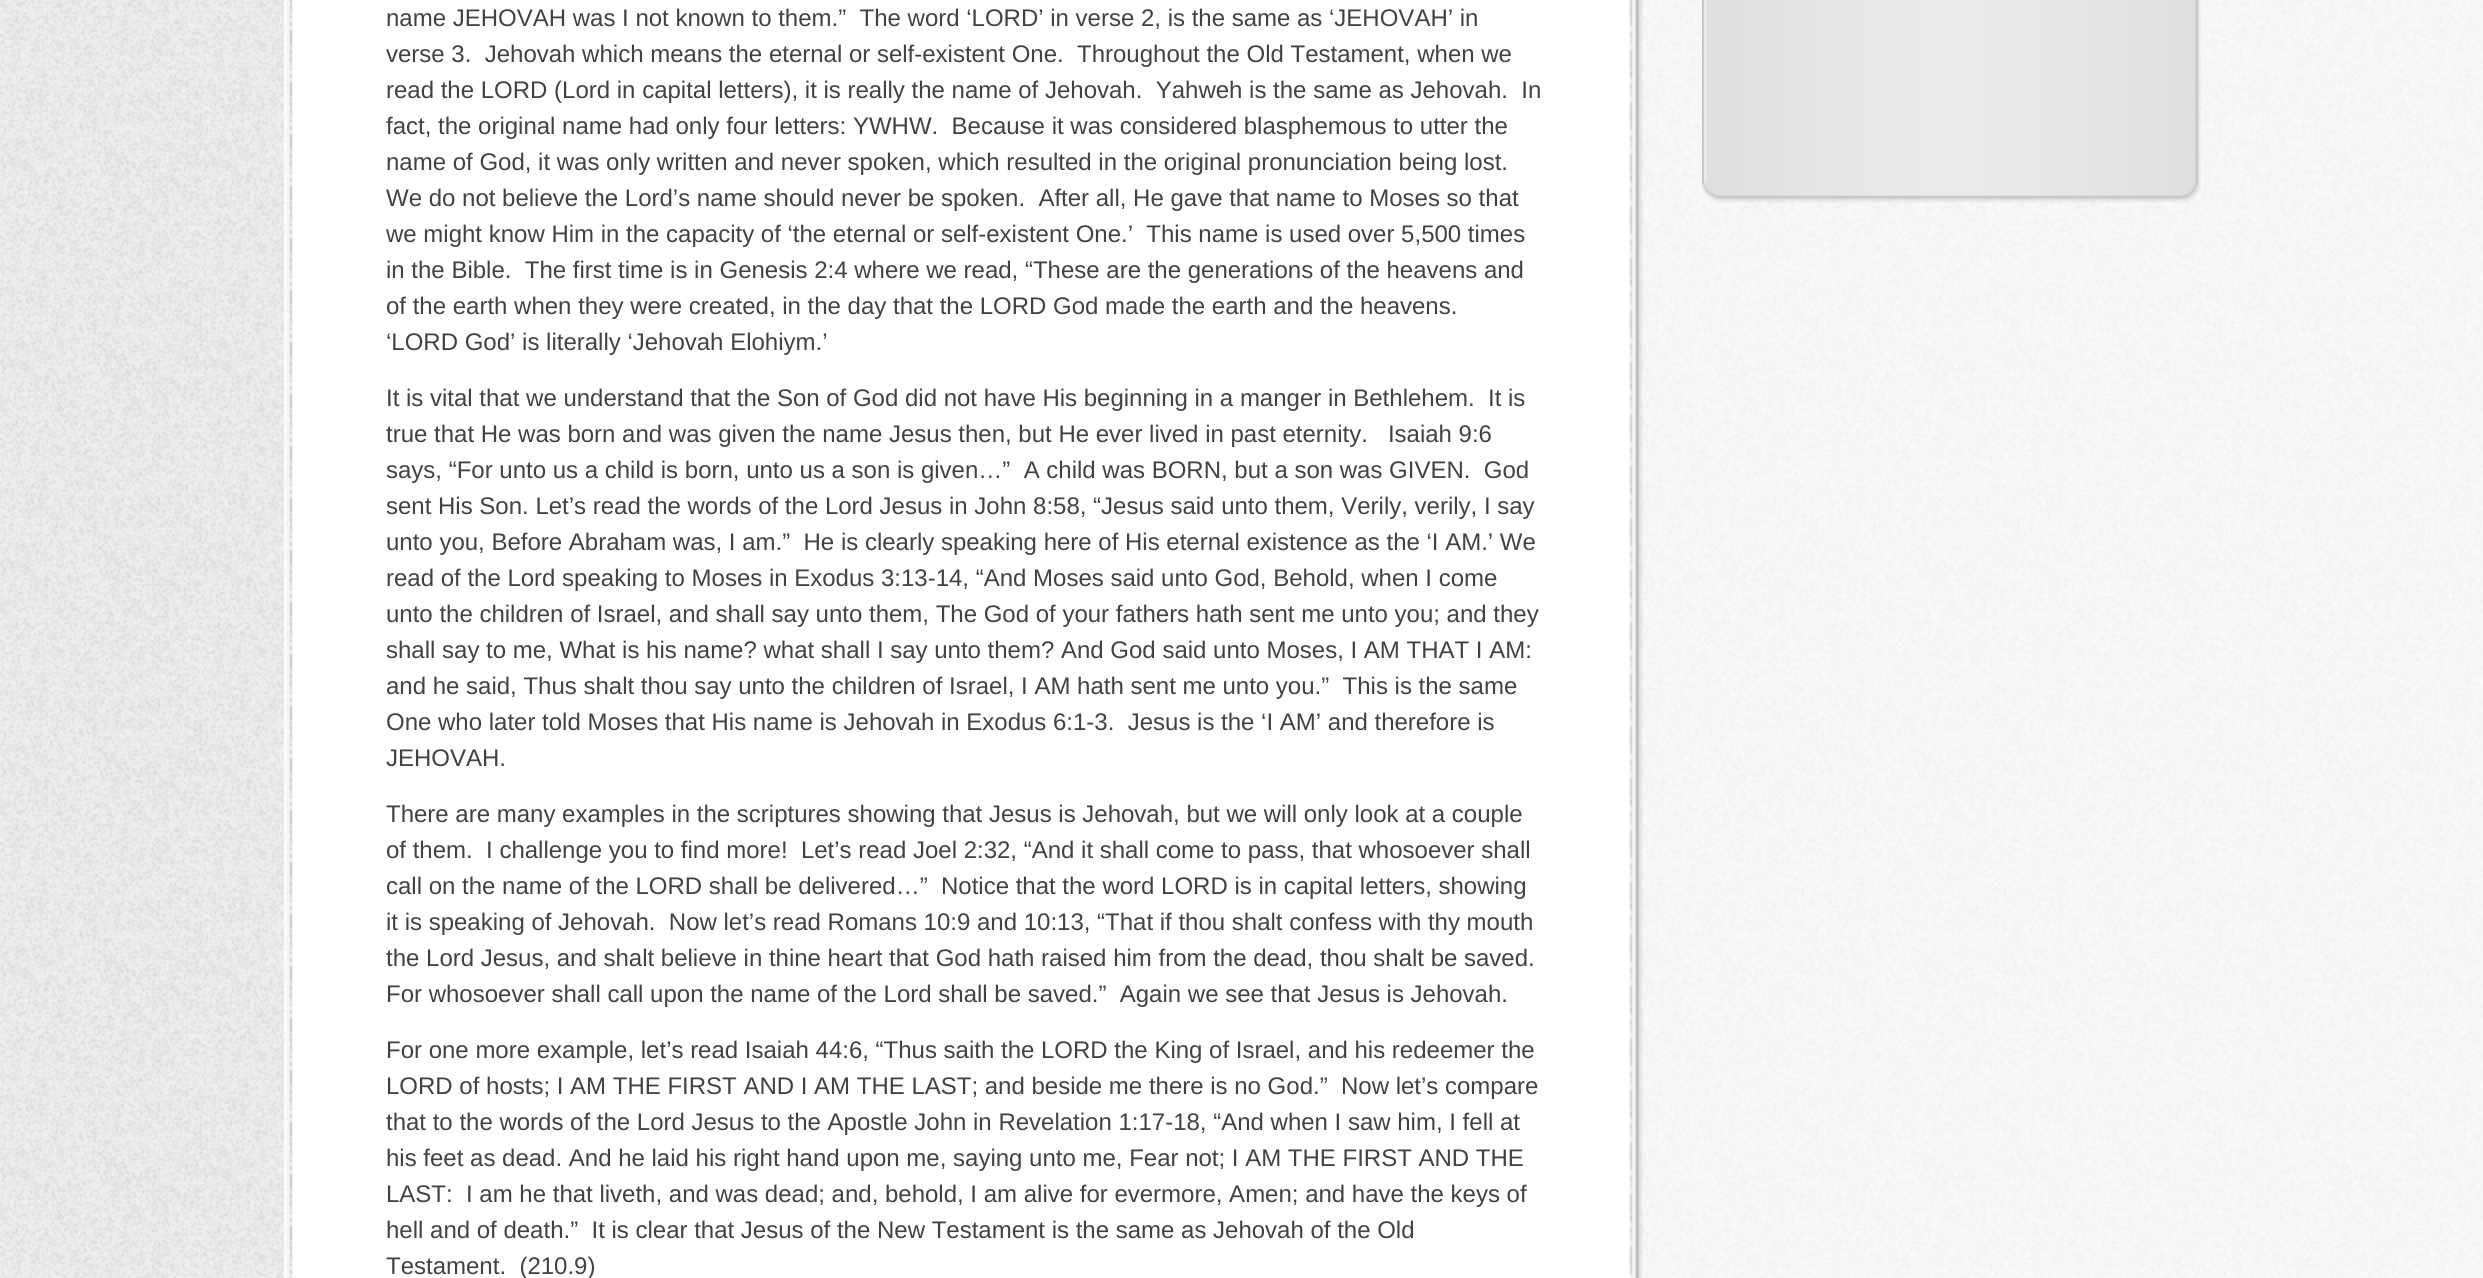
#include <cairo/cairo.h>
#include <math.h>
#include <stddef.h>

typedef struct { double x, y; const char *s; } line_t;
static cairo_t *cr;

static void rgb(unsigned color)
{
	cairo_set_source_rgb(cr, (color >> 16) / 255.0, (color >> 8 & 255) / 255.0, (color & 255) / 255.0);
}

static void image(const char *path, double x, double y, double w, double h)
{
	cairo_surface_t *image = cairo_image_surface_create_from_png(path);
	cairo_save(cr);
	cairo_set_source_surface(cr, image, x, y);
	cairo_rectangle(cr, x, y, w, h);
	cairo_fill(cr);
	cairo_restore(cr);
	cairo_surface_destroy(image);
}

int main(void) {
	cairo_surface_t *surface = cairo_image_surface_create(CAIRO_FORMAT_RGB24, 2483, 1278);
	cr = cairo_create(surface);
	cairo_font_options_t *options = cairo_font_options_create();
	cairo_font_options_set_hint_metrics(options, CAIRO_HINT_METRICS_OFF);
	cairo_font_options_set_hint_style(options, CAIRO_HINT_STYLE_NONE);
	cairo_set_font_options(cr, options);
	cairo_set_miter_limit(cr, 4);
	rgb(0xffffff);
	cairo_paint(cr);
	image("img/1.png", 0, 0, 2483, 1278);
	image("img/2.png", 1637, 0, 846, 1278);
	image("img/3.png", 283, 0, 1360, 1278);
	image("img/4.png", 1702, 160, 499, 43);
	image("img/5.png", 1702, 0, 499, 160);
	cairo_select_font_face(cr, "Liberation Sans", CAIRO_FONT_SLANT_NORMAL, CAIRO_FONT_WEIGHT_NORMAL);
	cairo_set_font_size(cr, 24);
	rgb(0x424242);
	{
		static const line_t items[] = {
			{386, 26, "name JEHOVAH was I not known to them.”  The word ‘LORD’ in verse 2, is the same as ‘JEHOVAH’ in"},
			{386, 62, "verse 3.  Jehovah which means the eternal or self-existent One.  Throughout the Old Testament, when we"},
			{386, 98, "read the LORD (Lord in capital letters), it is really the name of Jehovah.  Yahweh is the same as Jehovah.  In"},
			{386, 134, "fact, the original name had only four letters: YWHW.  Because it was considered blasphemous to utter the"},
			{386, 170, "name of God, it was only written and never spoken, which resulted in the original pronunciation being lost."},
			{386, 206, "We do not believe the Lord’s name should never be spoken.  After all, He gave that name to Moses so that"},
			{386, 242, "we might know Him in the capacity of ‘the eternal or self-existent One.’  This name is used over 5,500 times"},
			{386, 278, "in the Bible.  The first time is in Genesis 2:4 where we read, “These are the generations of the heavens and"},
			{386, 314, "of the earth when they were created, in the day that the LORD God made the earth and the heavens."},
			{386, 350, "‘LORD God’ is literally ‘Jehovah Elohiym.’"},
			{386, 406, "It is vital that we understand that the Son of God did not have His beginning in a manger in Bethlehem.  It is"},
			{386, 442, "true that He was born and was given the name Jesus then, but He ever lived in past eternity.   Isaiah 9:6"},
			{386, 478, "says, “For unto us a child is born, unto us a son is given…”  A child was BORN, but a son was GIVEN.  God"},
			{386, 514, "sent His Son. Let’s read the words of the Lord Jesus in John 8:58, “Jesus said unto them, Verily, verily, I say"},
			{386, 550, "unto you, Before Abraham was, I am.”  He is clearly speaking here of His eternal existence as the ‘I AM.’ We"},
			{386, 586, "read of the Lord speaking to Moses in Exodus 3:13-14, “And Moses said unto God, Behold, when I come"},
			{386, 622, "unto the children of Israel, and shall say unto them, The God of your fathers hath sent me unto you; and they"},
			{386, 658, "shall say to me, What is his name? what shall I say unto them? And God said unto Moses, I AM THAT I AM:"},
			{386, 694, "and he said, Thus shalt thou say unto the children of Israel, I AM hath sent me unto you.”  This is the same"},
			{386, 730, "One who later told Moses that His name is Jehovah in Exodus 6:1-3.  Jesus is the ‘I AM’ and therefore is"},
			{386, 766, "JEHOVAH."},
			{386, 822, "There are many examples in the scriptures showing that Jesus is Jehovah, but we will only look at a couple"},
			{386, 858, "of them.  I challenge you to find more!  Let’s read Joel 2:32, “And it shall come to pass, that whosoever shall"},
			{386, 894, "call on the name of the LORD shall be delivered…”  Notice that the word LORD is in capital letters, showing"},
			{386, 930, "it is speaking of Jehovah.  Now let’s read Romans 10:9 and 10:13, “That if thou shalt confess with thy mouth"},
			{386, 966, "the Lord Jesus, and shalt believe in thine heart that God hath raised him from the dead, thou shalt be saved."},
			{386, 1002, "For whosoever shall call upon the name of the Lord shall be saved.”  Again we see that Jesus is Jehovah."},
			{386, 1058, "For one more example, let’s read Isaiah 44:6, “Thus saith the LORD the King of Israel, and his redeemer the"},
			{386, 1094, "LORD of hosts; I AM THE FIRST AND I AM THE LAST; and beside me there is no God.”  Now let’s compare"},
			{386, 1130, "that to the words of the Lord Jesus to the Apostle John in Revelation 1:17-18, “And when I saw him, I fell at"},
			{386, 1166, "his feet as dead. And he laid his right hand upon me, saying unto me, Fear not; I AM THE FIRST AND THE"},
			{386, 1202, "LAST:  I am he that liveth, and was dead; and, behold, I am alive for evermore, Amen; and have the keys of"},
			{386, 1238, "hell and of death.”  It is clear that Jesus of the New Testament is the same as Jehovah of the Old"},
			{386, 1274, "Testament.  (210.9)"},
		};
		for (size_t i = 0; i < sizeof items / sizeof *items; i++) {
			cairo_move_to(cr, items[i].x, items[i].y);
			cairo_show_text(cr, items[i].s);
		}
	}
	cairo_surface_write_to_png(surface, "page.png");
	cairo_font_options_destroy(options);
	cairo_destroy(cr);
	cairo_surface_destroy(surface);
	return 0;
}
